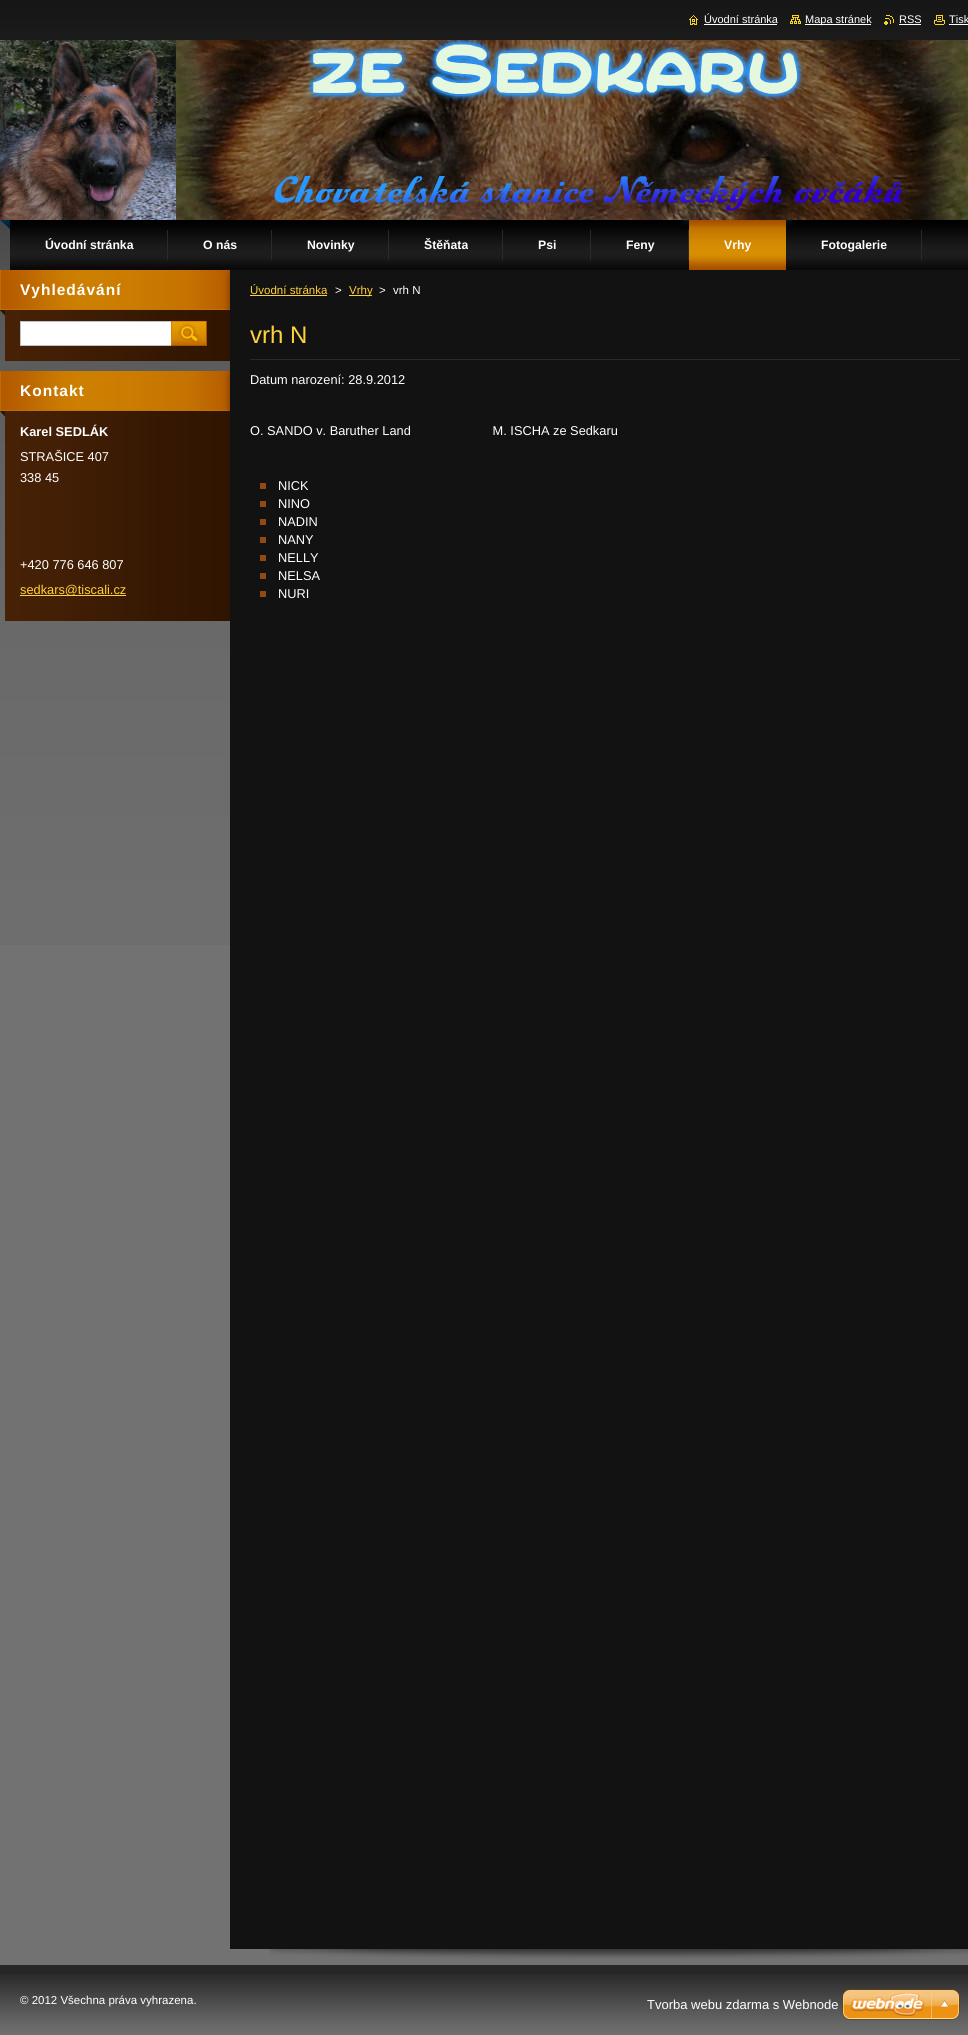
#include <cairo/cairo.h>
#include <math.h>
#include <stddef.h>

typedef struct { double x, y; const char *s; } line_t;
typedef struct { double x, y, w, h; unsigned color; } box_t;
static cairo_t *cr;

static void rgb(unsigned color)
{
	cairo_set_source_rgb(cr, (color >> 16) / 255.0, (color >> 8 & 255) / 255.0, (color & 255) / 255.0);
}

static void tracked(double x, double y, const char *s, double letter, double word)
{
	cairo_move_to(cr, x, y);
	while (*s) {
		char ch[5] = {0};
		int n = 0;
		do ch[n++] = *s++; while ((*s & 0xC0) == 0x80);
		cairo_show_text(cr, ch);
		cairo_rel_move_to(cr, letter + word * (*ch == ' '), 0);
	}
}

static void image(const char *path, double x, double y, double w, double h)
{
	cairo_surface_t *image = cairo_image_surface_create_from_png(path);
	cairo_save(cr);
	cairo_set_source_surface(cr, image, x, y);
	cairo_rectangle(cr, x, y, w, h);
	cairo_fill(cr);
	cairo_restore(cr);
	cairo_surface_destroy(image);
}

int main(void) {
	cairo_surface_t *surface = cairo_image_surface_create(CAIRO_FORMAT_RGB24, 968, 2035);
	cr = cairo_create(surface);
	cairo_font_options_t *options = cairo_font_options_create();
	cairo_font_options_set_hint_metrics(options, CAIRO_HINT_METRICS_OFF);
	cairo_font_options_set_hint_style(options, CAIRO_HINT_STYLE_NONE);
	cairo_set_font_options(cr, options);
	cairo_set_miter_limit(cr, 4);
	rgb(0x727272);
	cairo_paint(cr);
	image("img/1.png", 0, 0, 968, 945);
	image("img/2.png", 689, 15, 9, 10);
	rgb(0xffffff);
	cairo_rectangle(cr, 704, 24, 73, 1);
	cairo_fill(cr);
	image("img/3.png", 790, 15, 11, 9);
	cairo_rectangle(cr, 805, 24, 66, 1);
	cairo_fill(cr);
	image("img/4.png", 884, 15, 10, 10);
	cairo_rectangle(cr, 899, 24, 22, 1);
	cairo_fill(cr);
	image("img/5.png", 934, 15, 11, 10);
	cairo_rectangle(cr, 949, 24, 19, 1);
	cairo_fill(cr);
	image("img/6.png", 0, 40, 968, 180);
	image("img/7.png", 0, 220, 968, 50);
	{
		static const box_t items[] = {
			{167, 230, 1, 30, 0x2a2a2a},
			{271, 230, 1, 30, 0x2a2a2a},
			{388, 230, 1, 30, 0x2a2a2a},
			{502, 230, 1, 30, 0x2a2a2a},
			{590, 230, 1, 30, 0x2a2a2a},
			{688, 230, 1, 30, 0x2a2a2a},
		};
		for (size_t i = 0; i < sizeof items / sizeof *items; i++) {
			rgb(items[i].color);
			cairo_rectangle(cr, items[i].x, items[i].y, items[i].w, items[i].h);
			cairo_fill(cr);
		}
	}
	image("img/8.png", 689, 220, 97, 50);
	cairo_rectangle(cr, 921, 230, 1, 30);
	cairo_fill(cr);
	image("img/9.png", 5, 316, 225, 45);
	image("img/10.png", 0, 270, 230, 46);
	rgb(0xffffff);
	cairo_rectangle(cr, 20.5, 321.5, 151, 24);
	cairo_fill_preserve(cr);
	rgb(0xc1c1c1);
	cairo_set_line_width(cr, 1);
	cairo_stroke(cr);
	image("img/11.png", 171, 321, 36, 25);
	image("img/12.png", 5, 417, 225, 204);
	image("img/13.png", 0, 371, 230, 46);
	rgb(0xffd23a);
	cairo_rectangle(cr, 20, 595, 106, 1);
	cairo_fill(cr);
	image("img/14.png", 270, 1949, 698, 10);
	{
		static const box_t items[] = {
			{230, 270, 738, 1679, 0x121212},
			{250, 295, 77, 1, 0xffd23a},
			{349, 295, 23, 1, 0xffd23a},
			{250, 359, 710, 1, 0x2a2a2a},
			{260, 483, 6, 6, 0x914a14},
			{260, 501, 6, 6, 0x914a14},
			{260, 519, 6, 6, 0x914a14},
			{260, 537, 6, 6, 0x914a14},
			{260, 555, 6, 6, 0x914a14},
			{260, 573, 6, 6, 0x914a14},
			{260, 591, 6, 6, 0x914a14},
			{0, 1965, 968, 9, 0x272727},
		};
		for (size_t i = 0; i < sizeof items / sizeof *items; i++) {
			rgb(items[i].color);
			cairo_rectangle(cr, items[i].x, items[i].y, items[i].w, items[i].h);
			cairo_fill(cr);
		}
	}
	image("img/15.png", 0, 1974, 968, 61);
	image("img/16.png", 842, 1989, 118, 31);
	cairo_select_font_face(cr, "Liberation Sans", CAIRO_FONT_SLANT_NORMAL, CAIRO_FONT_WEIGHT_NORMAL);
	cairo_set_font_size(cr, 11);
	rgb(0xffffff);
	{
		static const line_t items[] = {
			{704, 23, "Úvodní stránka"},
			{805, 23, "Mapa stránek"},
			{899, 23, "RSS"},
			{949, 23, "Tisk"},
		};
		for (size_t i = 0; i < sizeof items / sizeof *items; i++) {
			cairo_move_to(cr, items[i].x, items[i].y);
			cairo_show_text(cr, items[i].s);
		}
	}
	cairo_select_font_face(cr, "Liberation Sans", CAIRO_FONT_SLANT_NORMAL, CAIRO_FONT_WEIGHT_BOLD);
	cairo_set_font_size(cr, 12.25);
	{
		static const line_t items[] = {
			{45, 249, "Úvodní stránka"},
			{203, 249, "O nás"},
			{307, 249, "Novinky"},
			{424, 249, "Štěňata"},
			{538, 249, "Psi"},
			{626, 249, "Feny"},
			{724, 249, "Vrhy"},
			{821, 249, "Fotogalerie"},
		};
		for (size_t i = 0; i < sizeof items / sizeof *items; i++) {
			cairo_move_to(cr, items[i].x, items[i].y);
			cairo_show_text(cr, items[i].s);
		}
	}
	cairo_set_font_size(cr, 15.5);
	tracked(20, 295, "Vyhledávání", 1, 0);
	tracked(20, 396, "Kontakt", 1, 0);
	cairo_set_font_size(cr, 12.8);
	cairo_move_to(cr, 20, 436);
	cairo_show_text(cr, "Karel SEDLÁK");
	cairo_select_font_face(cr, "Liberation Sans", CAIRO_FONT_SLANT_NORMAL, CAIRO_FONT_WEIGHT_NORMAL);
	{
		static const line_t items[] = {
			{20, 461, "STRAŠICE 407"},
			{20, 482, "338 45"},
			{20, 569, "+420 776 646 807"},
		};
		for (size_t i = 0; i < sizeof items / sizeof *items; i++) {
			cairo_move_to(cr, items[i].x, items[i].y);
			cairo_show_text(cr, items[i].s);
		}
	}
	rgb(0xffd23a);
	cairo_move_to(cr, 20, 594);
	cairo_show_text(cr, "sedkars@tiscali.cz");
	cairo_set_font_size(cr, 11.5);
	cairo_move_to(cr, 250, 294);
	cairo_show_text(cr, "Úvodní stránka");
	rgb(0xffffff);
	cairo_move_to(cr, 335, 294);
	cairo_show_text(cr, ">");
	rgb(0xffd23a);
	cairo_move_to(cr, 349, 294);
	cairo_show_text(cr, "Vrhy");
	rgb(0xffffff);
	cairo_move_to(cr, 379, 294);
	cairo_show_text(cr, ">");
	cairo_move_to(cr, 393, 294);
	cairo_show_text(cr, "vrh N");
	cairo_set_font_size(cr, 24);
	rgb(0xffd23a);
	cairo_move_to(cr, 250, 343);
	cairo_show_text(cr, "vrh N");
	cairo_set_font_size(cr, 12.8);
	rgb(0xffffff);
	{
		static const line_t items[] = {
			{250, 384, "Datum narození: 28.9.2012"},
			{250, 435, "O. SANDO v. Baruther Land                       M. ISCHA ze Sedkaru"},
			{278, 490, "NICK"},
			{278, 508, "NINO"},
			{278, 526, "NADIN"},
			{278, 544, "NANY"},
			{278, 562, "NELLY"},
			{278, 580, "NELSA"},
			{278, 598, "NURI"},
		};
		for (size_t i = 0; i < sizeof items / sizeof *items; i++) {
			cairo_move_to(cr, items[i].x, items[i].y);
			cairo_show_text(cr, items[i].s);
		}
	}
	cairo_set_font_size(cr, 11.5);
	cairo_move_to(cr, 20, 2004);
	cairo_show_text(cr, "© 2012 Všechna práva vyhrazena.");
	cairo_set_font_size(cr, 13);
	cairo_move_to(cr, 647, 2009);
	cairo_show_text(cr, "Tvorba webu zdarma s Webnode");
	cairo_surface_write_to_png(surface, "page.png");
	cairo_font_options_destroy(options);
	cairo_destroy(cr);
	cairo_surface_destroy(surface);
	return 0;
}
